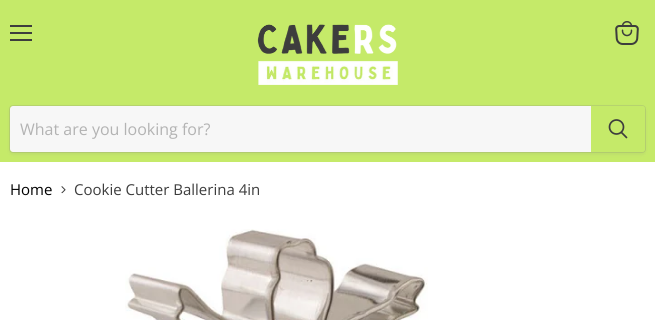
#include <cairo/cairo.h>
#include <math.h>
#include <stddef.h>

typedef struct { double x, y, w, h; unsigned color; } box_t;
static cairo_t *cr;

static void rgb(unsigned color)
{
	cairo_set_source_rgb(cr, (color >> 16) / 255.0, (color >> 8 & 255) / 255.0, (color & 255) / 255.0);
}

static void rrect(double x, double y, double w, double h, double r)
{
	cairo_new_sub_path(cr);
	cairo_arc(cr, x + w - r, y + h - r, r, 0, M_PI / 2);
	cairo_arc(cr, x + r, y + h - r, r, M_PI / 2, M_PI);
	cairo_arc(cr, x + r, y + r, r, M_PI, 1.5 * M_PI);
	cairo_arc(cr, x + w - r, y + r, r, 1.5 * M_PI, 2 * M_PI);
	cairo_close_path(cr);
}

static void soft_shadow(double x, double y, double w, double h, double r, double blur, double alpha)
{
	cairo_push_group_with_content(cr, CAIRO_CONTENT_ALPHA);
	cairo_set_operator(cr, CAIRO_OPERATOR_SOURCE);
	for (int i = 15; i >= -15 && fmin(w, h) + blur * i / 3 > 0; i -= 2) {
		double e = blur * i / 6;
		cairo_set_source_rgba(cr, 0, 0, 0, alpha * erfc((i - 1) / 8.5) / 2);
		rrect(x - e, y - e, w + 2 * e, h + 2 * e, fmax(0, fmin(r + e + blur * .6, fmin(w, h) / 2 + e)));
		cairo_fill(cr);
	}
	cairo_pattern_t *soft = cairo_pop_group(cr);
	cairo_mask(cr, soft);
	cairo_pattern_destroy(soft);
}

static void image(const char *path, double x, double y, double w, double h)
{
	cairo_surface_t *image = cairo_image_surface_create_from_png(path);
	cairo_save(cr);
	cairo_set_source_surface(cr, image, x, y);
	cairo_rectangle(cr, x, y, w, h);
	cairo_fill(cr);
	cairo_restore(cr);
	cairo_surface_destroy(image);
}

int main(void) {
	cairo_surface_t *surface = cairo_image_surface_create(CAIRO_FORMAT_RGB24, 655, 320);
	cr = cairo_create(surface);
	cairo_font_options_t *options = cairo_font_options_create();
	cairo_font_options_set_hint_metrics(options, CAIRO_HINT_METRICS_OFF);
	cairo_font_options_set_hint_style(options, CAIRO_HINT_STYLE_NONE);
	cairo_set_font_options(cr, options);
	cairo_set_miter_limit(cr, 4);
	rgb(0xffffff);
	cairo_paint(cr);
	{
		static const box_t items[] = {
			{0, 0, 655, 162, 0xc5ea69},
			{10, 25, 22, 2, 0x3d3d3d},
			{10, 32, 22, 2, 0x3d3d3d},
			{10, 39, 22, 2, 0x3d3d3d},
		};
		for (size_t i = 0; i < sizeof items / sizeof *items; i++) {
			rgb(items[i].color);
			cairo_rectangle(cr, items[i].x, items[i].y, items[i].w, items[i].h);
			cairo_fill(cr);
		}
	}
	image("img/1.png", 615, 21, 24, 24);
	image("img/2.png", 257, 24, 141, 61);
	rgb(0x808080);
	soft_shadow(9, 107, 637, 48, 4, 1.5, 0.11);
	rrect(9.5, 105.5, 636, 47, 3.5);
	cairo_set_source_rgba(cr, 0.502, 0.502, 0.502, 0.2);
	cairo_set_line_width(cr, 1);
	cairo_stroke(cr);
	rgb(0xf7f7f7);
	cairo_new_path(cr);
	cairo_move_to(cr, 13, 106);
	cairo_line_to(cr, 591, 106);
	cairo_line_to(cr, 591, 152);
	cairo_line_to(cr, 13, 152);
	cairo_curve_to(cr, 11.5, 152, 10, 150.5, 10, 149);
	cairo_line_to(cr, 10, 109);
	cairo_curve_to(cr, 10, 107.5, 11.5, 106, 13, 106);
	cairo_close_path(cr);
	cairo_fill(cr);
	rgb(0xc5ea69);
	cairo_new_path(cr);
	cairo_move_to(cr, 591.5, 106.5);
	cairo_line_to(cr, 642, 106.5);
	cairo_curve_to(cr, 643.5, 106.5, 644.5, 107.5, 644.5, 109);
	cairo_line_to(cr, 644.5, 149);
	cairo_curve_to(cr, 644.5, 150.5, 643.5, 151.5, 642, 151.5);
	cairo_line_to(cr, 591.5, 151.5);
	cairo_close_path(cr);
	cairo_fill_preserve(cr);
	cairo_stroke(cr);
	cairo_new_path(cr);
	cairo_move_to(cr, 626.5, 137.5);
	cairo_line_to(cr, 621.5, 132.5);
	rgb(0x3d3d3d);
	cairo_set_line_width(cr, 1.7);
	cairo_set_line_cap(cr, CAIRO_LINE_CAP_ROUND);
	cairo_stroke(cr);
	cairo_arc(cr, 616.5, 127, 7, 0, 2 * M_PI);
	cairo_set_line_cap(cr, CAIRO_LINE_CAP_BUTT);
	cairo_stroke(cr);
	image("img/3.png", 61, 186, 5, 8);
	image("img/4.png", 125, 229, 303, 91);
	cairo_select_font_face(cr, "Open Sans", CAIRO_FONT_SLANT_NORMAL, CAIRO_FONT_WEIGHT_NORMAL);
	cairo_set_font_size(cr, 16);
	rgb(0xb3b3b3);
	cairo_move_to(cr, 20, 135);
	cairo_show_text(cr, "What are you looking for?");
	cairo_set_font_size(cr, 15);
	rgb(0x000000);
	cairo_move_to(cr, 10, 195);
	cairo_show_text(cr, "Home");
	rgb(0x3d3d3d);
	cairo_move_to(cr, 74, 195);
	cairo_show_text(cr, "Cookie Cutter Ballerina 4in");
	cairo_surface_write_to_png(surface, "page.png");
	cairo_font_options_destroy(options);
	cairo_destroy(cr);
	cairo_surface_destroy(surface);
	return 0;
}
